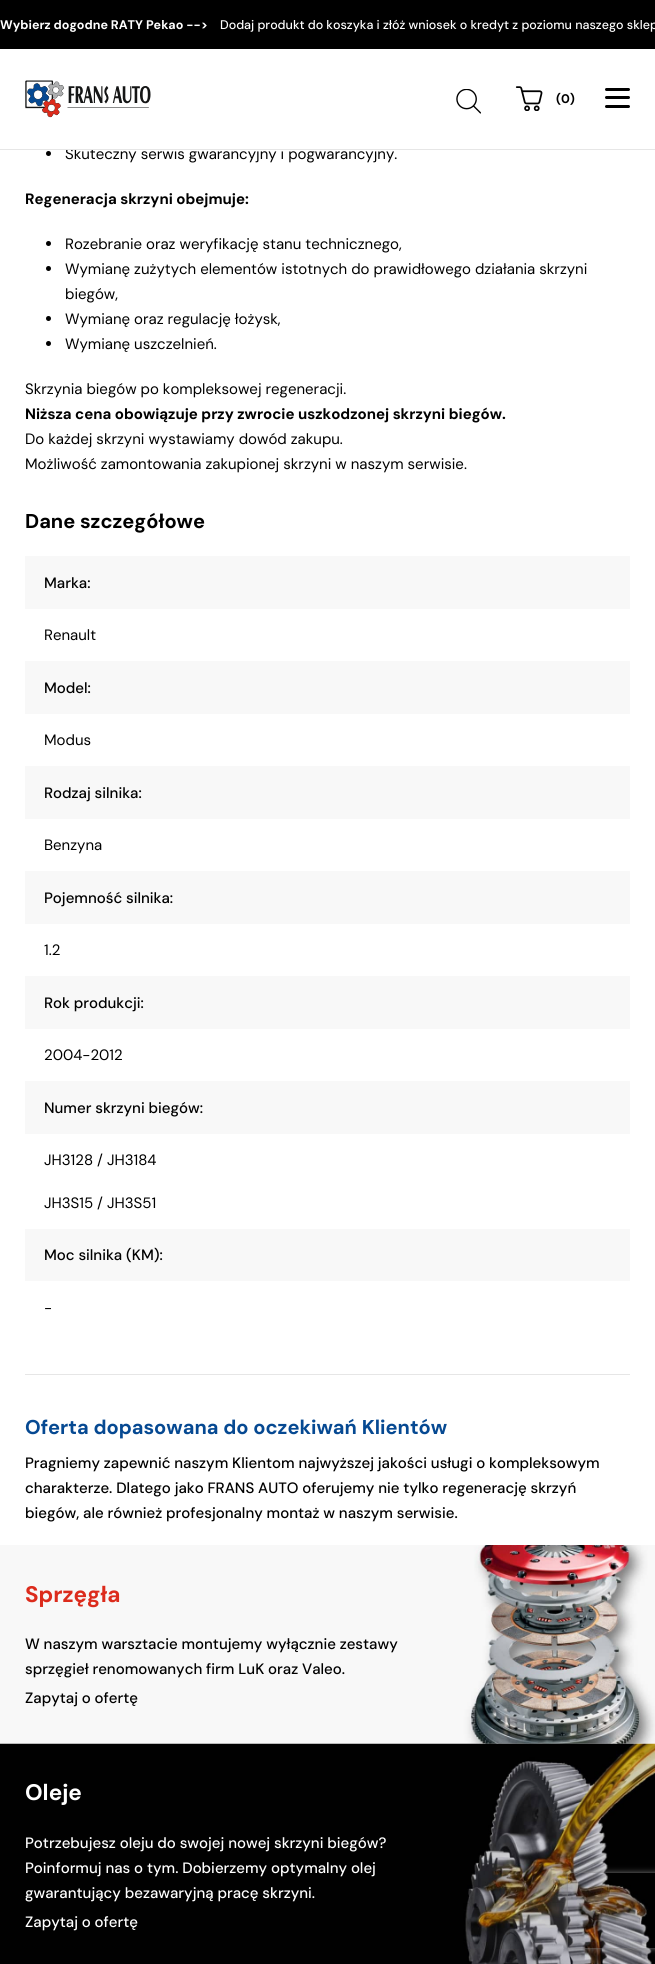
#include <cairo/cairo.h>
#include <math.h>
#include <stddef.h>

typedef struct { double x, y; const char *s; } line_t;
typedef struct { double x, y, w, h; unsigned color; } box_t;
static cairo_t *cr;

static void rgb(unsigned color)
{
	cairo_set_source_rgb(cr, (color >> 16) / 255.0, (color >> 8 & 255) / 255.0, (color & 255) / 255.0);
}

static void rrect(double x, double y, double w, double h, double r)
{
	cairo_new_sub_path(cr);
	cairo_arc(cr, x + w - r, y + h - r, r, 0, M_PI / 2);
	cairo_arc(cr, x + r, y + h - r, r, M_PI / 2, M_PI);
	cairo_arc(cr, x + r, y + r, r, M_PI, 1.5 * M_PI);
	cairo_arc(cr, x + w - r, y + r, r, 1.5 * M_PI, 2 * M_PI);
	cairo_close_path(cr);
}

static void soft_shadow(double x, double y, double w, double h, double r, double blur, double alpha)
{
	cairo_push_group_with_content(cr, CAIRO_CONTENT_ALPHA);
	cairo_set_operator(cr, CAIRO_OPERATOR_SOURCE);
	for (int i = 15; i >= -15 && fmin(w, h) + blur * i / 3 > 0; i -= 2) {
		double e = blur * i / 6;
		cairo_set_source_rgba(cr, 0, 0, 0, alpha * erfc((i - 1) / 8.5) / 2);
		rrect(x - e, y - e, w + 2 * e, h + 2 * e, fmax(0, fmin(r + e + blur * .6, fmin(w, h) / 2 + e)));
		cairo_fill(cr);
	}
	cairo_pattern_t *soft = cairo_pop_group(cr);
	cairo_mask(cr, soft);
	cairo_pattern_destroy(soft);
}

static void image(const char *path, double x, double y, double w, double h)
{
	cairo_surface_t *image = cairo_image_surface_create_from_png(path);
	cairo_save(cr);
	cairo_set_source_surface(cr, image, x, y);
	cairo_rectangle(cr, x, y, w, h);
	cairo_fill(cr);
	cairo_restore(cr);
	cairo_surface_destroy(image);
}

int main(void) {
	cairo_surface_t *surface = cairo_image_surface_create(CAIRO_FORMAT_RGB24, 655, 1964);
	cr = cairo_create(surface);
	cairo_font_options_t *options = cairo_font_options_create();
	cairo_font_options_set_hint_metrics(options, CAIRO_HINT_METRICS_OFF);
	cairo_font_options_set_hint_style(options, CAIRO_HINT_STYLE_NONE);
	cairo_set_font_options(cr, options);
	cairo_set_miter_limit(cr, 4);
	rgb(0xffffff);
	cairo_paint(cr);
	rgb(0x000000);
	cairo_rectangle(cr, 0, 0, 655, 49);
	cairo_fill(cr);
	image("img/1.png", 25, 80, 126, 38);
	image("img/2.png", 456, 89, 25, 25);
	image("img/3.png", 515, 86, 28, 25);
	rrect(605, 96, 25, 3, 1.5);
	cairo_fill(cr);
	rrect(605, 88, 25, 3, 1.5);
	cairo_fill(cr);
	rrect(605, 105, 25, 3, 1.5);
	cairo_fill(cr);
	rgb(0xe6e6e6);
	cairo_rectangle(cr, 25, 1374, 605, 1);
	cairo_fill(cr);
	rgb(0x000000);
	cairo_arc(cr, 48.5, 153.5, 2.5, 0, 2 * M_PI);
	cairo_fill(cr);
	cairo_arc(cr, 48.5, 243.5, 2.5, 0, 2 * M_PI);
	cairo_fill(cr);
	cairo_arc(cr, 48.5, 268.5, 2.5, 0, 2 * M_PI);
	cairo_fill(cr);
	cairo_arc(cr, 48.5, 318.5, 2.5, 0, 2 * M_PI);
	cairo_fill(cr);
	cairo_arc(cr, 48.5, 343.5, 2.5, 0, 2 * M_PI);
	cairo_fill(cr);
	{
		static const box_t items[] = {
			{25, 556, 605, 53, 0xf8f8f8},
			{25, 661, 605, 53, 0xf8f8f8},
			{25, 766, 605, 53, 0xf8f8f8},
			{25, 871, 605, 53, 0xf8f8f8},
			{25, 976, 605, 53, 0xf8f8f8},
			{25, 1081, 605, 53, 0xf8f8f8},
			{25, 1229, 605, 52, 0xf8f8f8},
		};
		for (size_t i = 0; i < sizeof items / sizeof *items; i++) {
			rgb(items[i].color);
			cairo_rectangle(cr, items[i].x, items[i].y, items[i].w, items[i].h);
			cairo_fill(cr);
		}
	}
	image("img/4.png", 0, 1545, 655, 199);
	image("img/5.png", 0, 1743, 655, 221);
	cairo_save(cr);
	cairo_set_fill_rule(cr, CAIRO_FILL_RULE_EVEN_ODD);
	cairo_new_path(cr);
	cairo_move_to(cr, 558, 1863);
	cairo_line_to(cr, 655, 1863);
	cairo_line_to(cr, 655, 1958);
	cairo_line_to(cr, 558, 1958);
	cairo_close_path(cr);
	cairo_move_to(cr, 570.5, 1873);
	cairo_line_to(cr, 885.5, 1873);
	cairo_curve_to(cr, 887, 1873, 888, 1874, 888, 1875.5);
	cairo_line_to(cr, 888, 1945.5);
	cairo_curve_to(cr, 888, 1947, 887, 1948, 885.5, 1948);
	cairo_line_to(cr, 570.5, 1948);
	cairo_curve_to(cr, 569, 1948, 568, 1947, 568, 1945.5);
	cairo_line_to(cr, 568, 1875.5);
	cairo_curve_to(cr, 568, 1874, 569, 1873, 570.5, 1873);
	cairo_close_path(cr);
	cairo_clip(cr);
	rgb(0x808080);
	soft_shadow(568, 1873, 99, 75, 2.5, 3, 1);
	cairo_restore(cr);
	cairo_select_font_face(cr, "DM Sans", CAIRO_FONT_SLANT_NORMAL, CAIRO_FONT_WEIGHT_BOLD);
	cairo_set_font_size(cr, 12.5);
	rgb(0xffffff);
	cairo_move_to(cr, 0, 29);
	cairo_show_text(cr, "Wybierz dogodne RATY Pekao -->");
	cairo_select_font_face(cr, "DM Sans Medium", CAIRO_FONT_SLANT_NORMAL, CAIRO_FONT_WEIGHT_NORMAL);
	cairo_move_to(cr, 220, 29);
	cairo_show_text(cr, "Dodaj produkt do koszyka i złóż wniosek o kredyt z poziomu naszego sklep");
	cairo_select_font_face(cr, "DM Sans", CAIRO_FONT_SLANT_NORMAL, CAIRO_FONT_WEIGHT_BOLD);
	rgb(0x000000);
	cairo_move_to(cr, 556, 103);
	cairo_show_text(cr, "(0)");
	cairo_select_font_face(cr, "DM Sans", CAIRO_FONT_SLANT_NORMAL, CAIRO_FONT_WEIGHT_NORMAL);
	cairo_set_font_size(cr, 15);
	cairo_move_to(cr, 65, 159);
	cairo_show_text(cr, "Skuteczny serwis gwarancyjny i pogwarancyjny.");
	rgb(0xe6e6e6);
	cairo_rectangle(cr, 0, 149, 655, 1);
	cairo_fill(cr);
	rgb(0xffffff);
	cairo_rectangle(cr, 67, 148, 310, 1);
	cairo_fill(cr);
	cairo_select_font_face(cr, "DM Sans", CAIRO_FONT_SLANT_NORMAL, CAIRO_FONT_WEIGHT_BOLD);
	rgb(0x000000);
	cairo_move_to(cr, 25, 204);
	cairo_show_text(cr, "Regeneracja skrzyni obejmuje:");
	cairo_select_font_face(cr, "DM Sans", CAIRO_FONT_SLANT_NORMAL, CAIRO_FONT_WEIGHT_NORMAL);
	{
		static const line_t items[] = {
			{65, 249, "Rozebranie oraz weryfikację stanu technicznego,"},
			{65, 274, "Wymianę zużytych elementów istotnych do prawidłowego działania skrzyni"},
			{65, 299, "biegów,"},
			{65, 324, "Wymianę oraz regulację łożysk,"},
			{65, 349, "Wymianę uszczelnień."},
			{25, 394, "Skrzynia biegów po kompleksowej regeneracji."},
		};
		for (size_t i = 0; i < sizeof items / sizeof *items; i++) {
			cairo_move_to(cr, items[i].x, items[i].y);
			cairo_show_text(cr, items[i].s);
		}
	}
	cairo_select_font_face(cr, "DM Sans", CAIRO_FONT_SLANT_NORMAL, CAIRO_FONT_WEIGHT_BOLD);
	cairo_move_to(cr, 25, 419);
	cairo_show_text(cr, "Niższa cena obowiązuje przy zwrocie uszkodzonej skrzyni biegów.");
	cairo_select_font_face(cr, "DM Sans", CAIRO_FONT_SLANT_NORMAL, CAIRO_FONT_WEIGHT_NORMAL);
	cairo_move_to(cr, 25, 444);
	cairo_show_text(cr, "Do każdej skrzyni wystawiamy dowód zakupu.");
	cairo_move_to(cr, 25, 469);
	cairo_show_text(cr, "Możliwość zamontowania zakupionej skrzyni w naszym serwisie.");
	cairo_select_font_face(cr, "DM Sans", CAIRO_FONT_SLANT_NORMAL, CAIRO_FONT_WEIGHT_BOLD);
	cairo_set_font_size(cr, 20);
	cairo_move_to(cr, 25, 528);
	cairo_show_text(cr, "Dane szczegółowe");
	cairo_select_font_face(cr, "DM Sans Medium", CAIRO_FONT_SLANT_NORMAL, CAIRO_FONT_WEIGHT_NORMAL);
	cairo_set_font_size(cr, 15);
	cairo_move_to(cr, 44, 588);
	cairo_show_text(cr, "Marka:");
	cairo_select_font_face(cr, "DM Sans", CAIRO_FONT_SLANT_NORMAL, CAIRO_FONT_WEIGHT_NORMAL);
	cairo_move_to(cr, 44, 640);
	cairo_show_text(cr, "Renault");
	cairo_select_font_face(cr, "DM Sans Medium", CAIRO_FONT_SLANT_NORMAL, CAIRO_FONT_WEIGHT_NORMAL);
	cairo_move_to(cr, 44, 693);
	cairo_show_text(cr, "Model:");
	cairo_select_font_face(cr, "DM Sans", CAIRO_FONT_SLANT_NORMAL, CAIRO_FONT_WEIGHT_NORMAL);
	cairo_move_to(cr, 44, 745);
	cairo_show_text(cr, "Modus");
	cairo_select_font_face(cr, "DM Sans Medium", CAIRO_FONT_SLANT_NORMAL, CAIRO_FONT_WEIGHT_NORMAL);
	cairo_move_to(cr, 44, 798);
	cairo_show_text(cr, "Rodzaj silnika:");
	cairo_select_font_face(cr, "DM Sans", CAIRO_FONT_SLANT_NORMAL, CAIRO_FONT_WEIGHT_NORMAL);
	cairo_move_to(cr, 44, 850);
	cairo_show_text(cr, "Benzyna");
	cairo_select_font_face(cr, "DM Sans Medium", CAIRO_FONT_SLANT_NORMAL, CAIRO_FONT_WEIGHT_NORMAL);
	cairo_move_to(cr, 44, 903);
	cairo_show_text(cr, "Pojemność silnika:");
	cairo_select_font_face(cr, "DM Sans", CAIRO_FONT_SLANT_NORMAL, CAIRO_FONT_WEIGHT_NORMAL);
	cairo_move_to(cr, 44, 955);
	cairo_show_text(cr, "1.2");
	cairo_select_font_face(cr, "DM Sans Medium", CAIRO_FONT_SLANT_NORMAL, CAIRO_FONT_WEIGHT_NORMAL);
	cairo_move_to(cr, 44, 1008);
	cairo_show_text(cr, "Rok produkcji:");
	cairo_select_font_face(cr, "DM Sans", CAIRO_FONT_SLANT_NORMAL, CAIRO_FONT_WEIGHT_NORMAL);
	cairo_move_to(cr, 44, 1060);
	cairo_show_text(cr, "2004-2012");
	cairo_select_font_face(cr, "DM Sans Medium", CAIRO_FONT_SLANT_NORMAL, CAIRO_FONT_WEIGHT_NORMAL);
	cairo_move_to(cr, 44, 1113);
	cairo_show_text(cr, "Numer skrzyni biegów:");
	cairo_select_font_face(cr, "DM Sans", CAIRO_FONT_SLANT_NORMAL, CAIRO_FONT_WEIGHT_NORMAL);
	cairo_move_to(cr, 44, 1165);
	cairo_show_text(cr, "JH3128 / JH3184");
	cairo_move_to(cr, 44, 1208);
	cairo_show_text(cr, "JH3S15 / JH3S51");
	cairo_select_font_face(cr, "DM Sans Medium", CAIRO_FONT_SLANT_NORMAL, CAIRO_FONT_WEIGHT_NORMAL);
	cairo_move_to(cr, 44, 1260);
	cairo_show_text(cr, "Moc silnika (KM):");
	cairo_select_font_face(cr, "DM Sans", CAIRO_FONT_SLANT_NORMAL, CAIRO_FONT_WEIGHT_NORMAL);
	cairo_move_to(cr, 44, 1313);
	cairo_show_text(cr, "-");
	cairo_select_font_face(cr, "DM Sans", CAIRO_FONT_SLANT_NORMAL, CAIRO_FONT_WEIGHT_BOLD);
	cairo_set_font_size(cr, 20);
	rgb(0x064992);
	cairo_move_to(cr, 25, 1434);
	cairo_show_text(cr, "Oferta dopasowana do oczekiwań Klientów");
	cairo_select_font_face(cr, "DM Sans Medium", CAIRO_FONT_SLANT_NORMAL, CAIRO_FONT_WEIGHT_NORMAL);
	cairo_set_font_size(cr, 15);
	rgb(0x000000);
	{
		static const line_t items[] = {
			{25, 1468, "Pragniemy zapewnić naszym Klientom najwyższej jakości usługi o kompleksowym"},
			{25, 1493, "charakterze. Dlatego jako FRANS AUTO oferujemy nie tylko regenerację skrzyń"},
			{25, 1518, "biegów, ale również profesjonalny montaż w naszym serwisie."},
		};
		for (size_t i = 0; i < sizeof items / sizeof *items; i++) {
			cairo_move_to(cr, items[i].x, items[i].y);
			cairo_show_text(cr, items[i].s);
		}
	}
	cairo_select_font_face(cr, "DM Sans", CAIRO_FONT_SLANT_NORMAL, CAIRO_FONT_WEIGHT_BOLD);
	cairo_set_font_size(cr, 22.5);
	rgb(0xdc2b1c);
	cairo_move_to(cr, 25, 1602);
	cairo_show_text(cr, "Sprzęgła");
	cairo_select_font_face(cr, "DM Sans Medium", CAIRO_FONT_SLANT_NORMAL, CAIRO_FONT_WEIGHT_NORMAL);
	cairo_set_font_size(cr, 15);
	rgb(0x000000);
	{
		static const line_t items[] = {
			{25, 1649, "W naszym warsztacie montujemy wyłącznie zestawy"},
			{25, 1674, "sprzęgieł renomowanych firm LuK oraz Valeo."},
			{25, 1703, "Zapytaj o ofertę"},
		};
		for (size_t i = 0; i < sizeof items / sizeof *items; i++) {
			cairo_move_to(cr, items[i].x, items[i].y);
			cairo_show_text(cr, items[i].s);
		}
	}
	cairo_select_font_face(cr, "DM Sans", CAIRO_FONT_SLANT_NORMAL, CAIRO_FONT_WEIGHT_BOLD);
	cairo_set_font_size(cr, 22.5);
	rgb(0xffffff);
	cairo_move_to(cr, 25, 1800);
	cairo_show_text(cr, "Oleje");
	cairo_select_font_face(cr, "DM Sans Medium", CAIRO_FONT_SLANT_NORMAL, CAIRO_FONT_WEIGHT_NORMAL);
	cairo_set_font_size(cr, 15);
	{
		static const line_t items[] = {
			{25, 1848, "Potrzebujesz oleju do swojej nowej skrzyni biegów?"},
			{25, 1873, "Poinformuj nas o tym. Dobierzemy optymalny olej"},
			{25, 1898, "gwarantujący bezawaryjną pracę skrzyni."},
			{25, 1927, "Zapytaj o ofertę"},
		};
		for (size_t i = 0; i < sizeof items / sizeof *items; i++) {
			cairo_move_to(cr, items[i].x, items[i].y);
			cairo_show_text(cr, items[i].s);
		}
	}
	cairo_surface_write_to_png(surface, "page.png");
	cairo_font_options_destroy(options);
	cairo_destroy(cr);
	cairo_surface_destroy(surface);
	return 0;
}
